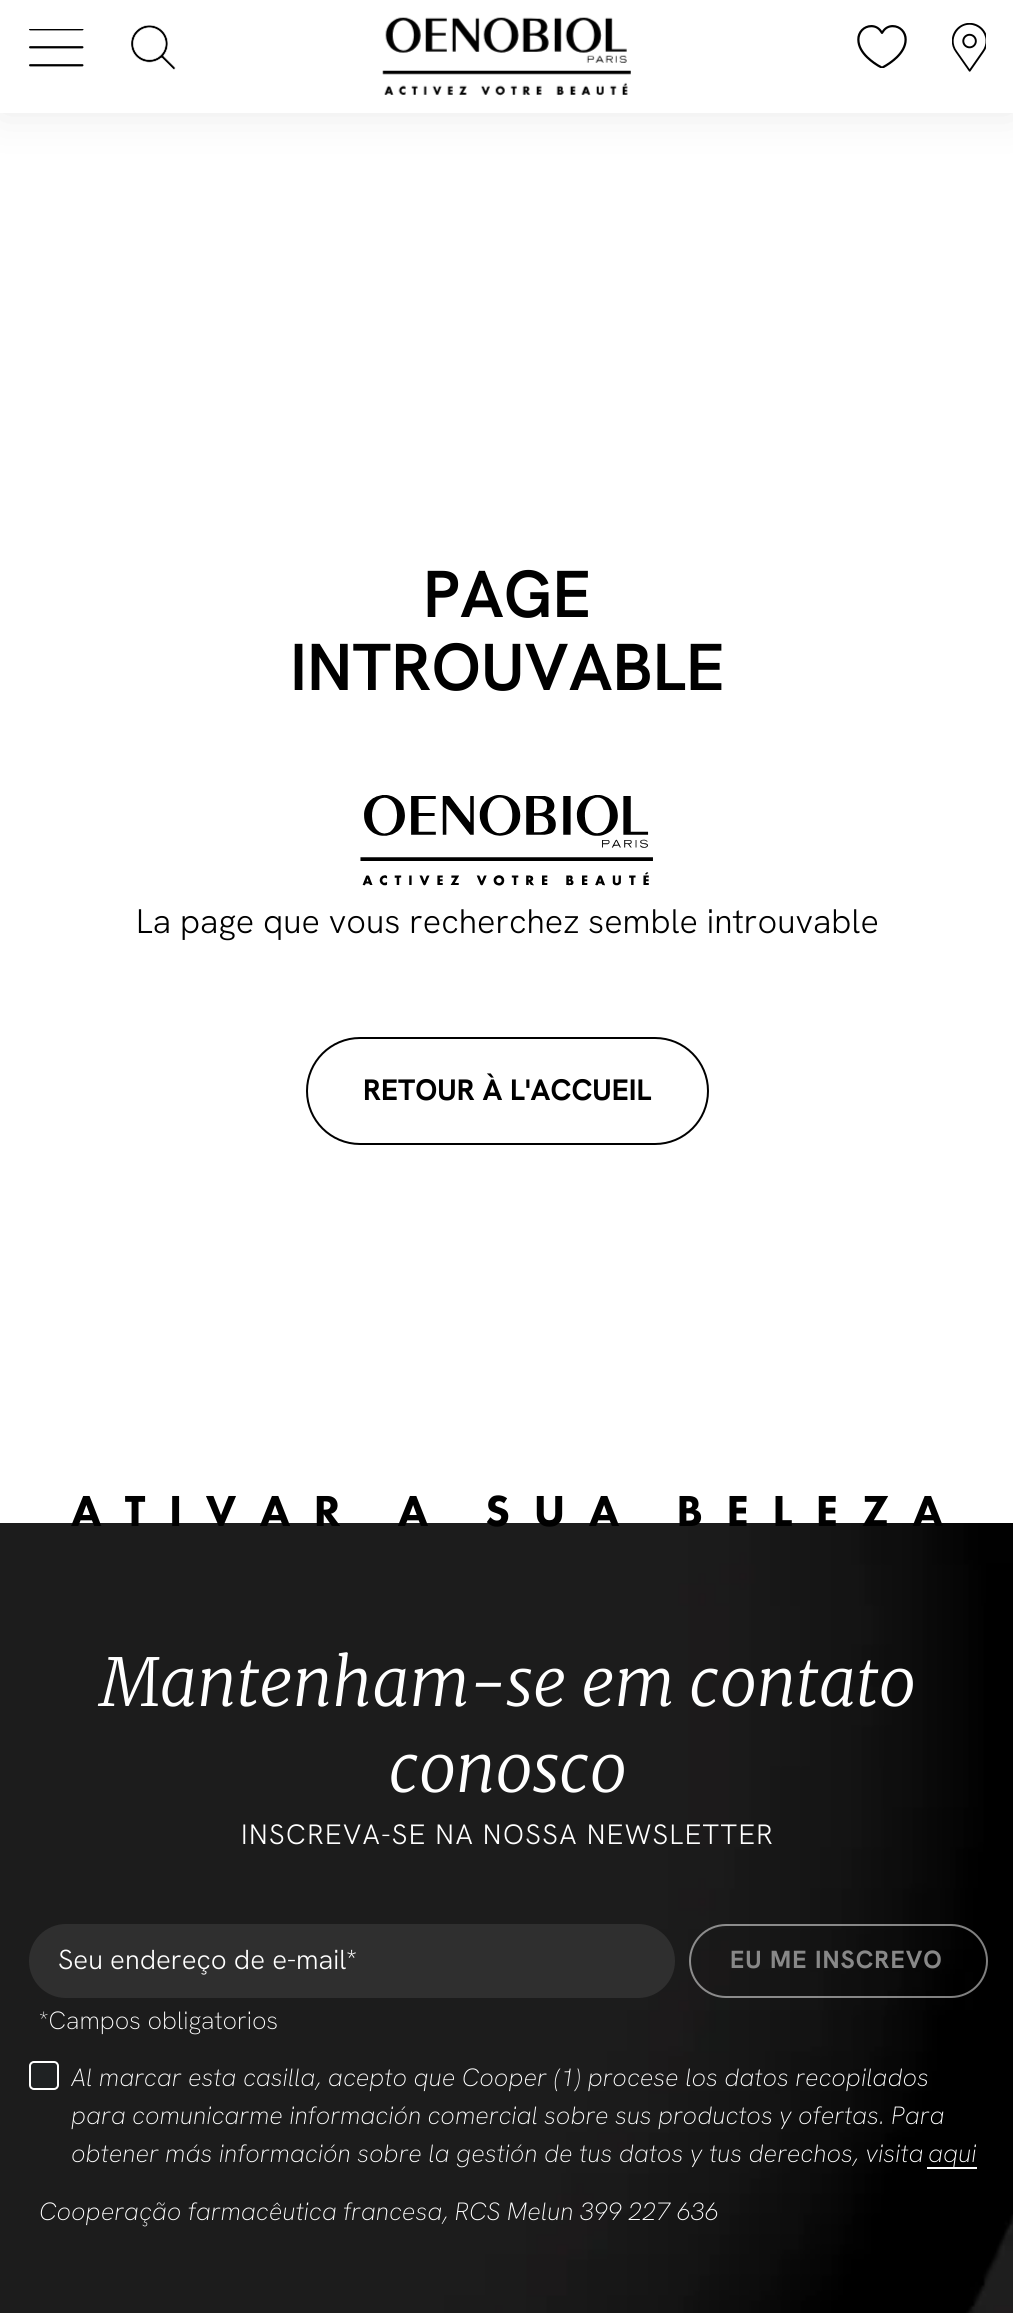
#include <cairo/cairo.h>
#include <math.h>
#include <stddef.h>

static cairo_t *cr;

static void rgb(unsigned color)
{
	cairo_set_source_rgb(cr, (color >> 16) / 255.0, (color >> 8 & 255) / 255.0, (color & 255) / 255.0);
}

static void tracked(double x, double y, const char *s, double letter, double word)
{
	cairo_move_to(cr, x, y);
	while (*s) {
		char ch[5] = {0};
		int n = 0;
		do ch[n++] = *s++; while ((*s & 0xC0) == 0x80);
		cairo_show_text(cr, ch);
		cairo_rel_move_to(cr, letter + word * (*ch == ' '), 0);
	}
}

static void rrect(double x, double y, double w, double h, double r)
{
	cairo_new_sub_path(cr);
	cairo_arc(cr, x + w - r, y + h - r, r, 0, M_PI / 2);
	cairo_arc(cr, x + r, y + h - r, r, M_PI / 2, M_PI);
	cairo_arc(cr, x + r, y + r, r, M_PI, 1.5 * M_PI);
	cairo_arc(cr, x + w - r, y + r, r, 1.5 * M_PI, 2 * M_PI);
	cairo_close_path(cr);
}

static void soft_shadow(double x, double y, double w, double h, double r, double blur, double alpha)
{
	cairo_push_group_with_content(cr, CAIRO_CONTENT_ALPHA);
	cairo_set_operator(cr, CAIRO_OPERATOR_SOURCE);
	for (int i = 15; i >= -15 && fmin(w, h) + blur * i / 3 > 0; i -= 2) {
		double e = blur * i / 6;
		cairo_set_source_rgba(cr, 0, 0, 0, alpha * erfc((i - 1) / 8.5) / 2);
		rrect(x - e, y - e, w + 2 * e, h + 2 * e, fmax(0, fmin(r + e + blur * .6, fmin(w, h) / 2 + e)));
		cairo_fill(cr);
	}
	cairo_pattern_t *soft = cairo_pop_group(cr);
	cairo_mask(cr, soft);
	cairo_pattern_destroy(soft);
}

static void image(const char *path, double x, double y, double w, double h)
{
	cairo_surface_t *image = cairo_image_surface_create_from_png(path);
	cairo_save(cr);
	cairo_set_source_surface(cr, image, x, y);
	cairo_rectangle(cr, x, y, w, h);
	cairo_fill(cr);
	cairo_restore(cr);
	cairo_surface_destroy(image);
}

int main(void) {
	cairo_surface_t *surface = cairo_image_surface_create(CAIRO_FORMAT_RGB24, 1013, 2313);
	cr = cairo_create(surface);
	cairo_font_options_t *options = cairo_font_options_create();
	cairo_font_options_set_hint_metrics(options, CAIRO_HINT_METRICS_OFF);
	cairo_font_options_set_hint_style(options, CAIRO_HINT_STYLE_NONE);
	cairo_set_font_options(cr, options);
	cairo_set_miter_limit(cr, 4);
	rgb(0xffffff);
	cairo_paint(cr);
	rgb(0x707070);
	soft_shadow(0, 0, 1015, 113, 0, 22.5, 0.15);
	rgb(0xffffff);
	cairo_rectangle(cr, 0, 0, 1013, 113);
	cairo_fill(cr);
	image("img/1.png", 382, 17, 249, 79);
	image("img/2.png", 29, 29, 55, 38);
	image("img/3.png", 131, 25, 45, 45);
	image("img/4.png", 857, 25, 50, 43);
	image("img/5.png", 952, 23, 34, 49);
	image("img/6.png", 360, 795, 293, 91);
	rrect(307, 1038, 401, 106, 53);
	rgb(0x000000);
	cairo_stroke(cr);
	image("img/7.png", 0, 1523, 1013, 790);
	rgb(0x2f2f2f);
	rrect(29, 1924, 646, 74, 37);
	cairo_fill(cr);
	rrect(690, 1925, 297, 72, 36);
	cairo_set_source_rgba(cr, 1, 1, 1, 0.5);
	cairo_stroke(cr);
	rgb(0x1f2223);
	rrect(30, 2062, 28, 27, 4);
	cairo_fill_preserve(cr);
	rgb(0xffffff);
	cairo_stroke(cr);
	cairo_rectangle(cr, 927, 2167, 50, 2);
	cairo_fill(cr);
	cairo_select_font_face(cr, "Hanken Grotesk SemiBold", CAIRO_FONT_SLANT_NORMAL, CAIRO_FONT_WEIGHT_NORMAL);
	cairo_set_font_size(cr, 66.25);
	rgb(0x000000);
	cairo_move_to(cr, 423, 617);
	cairo_show_text(cr, "PAGE");
	cairo_move_to(cr, 290, 690);
	cairo_show_text(cr, "INTROUVABLE");
	cairo_select_font_face(cr, "Hanken Grotesk Light", CAIRO_FONT_SLANT_NORMAL, CAIRO_FONT_WEIGHT_NORMAL);
	cairo_set_font_size(cr, 34.1);
	cairo_move_to(cr, 136, 933);
	cairo_show_text(cr, "La page que vous recherchez semble introuvable");
	cairo_select_font_face(cr, "Hanken Grotesk", CAIRO_FONT_SLANT_NORMAL, CAIRO_FONT_WEIGHT_BOLD);
	cairo_set_font_size(cr, 29.5);
	cairo_move_to(cr, 363, 1100);
	cairo_show_text(cr, "RETOUR À L'ACCUEIL");
	cairo_select_font_face(cr, "Futura PT Black", CAIRO_FONT_SLANT_NORMAL, CAIRO_FONT_WEIGHT_NORMAL);
	cairo_set_font_size(cr, 45);
	tracked(71, 1526, "ATIVAR A SUA BELEZA", 23.3, 0);
	cairo_select_font_face(cr, "Merriweather Light", CAIRO_FONT_SLANT_ITALIC, CAIRO_FONT_WEIGHT_NORMAL);
	cairo_set_font_size(cr, 65.9);
	rgb(0xffffff);
	cairo_move_to(cr, 100, 1706);
	cairo_show_text(cr, "Mantenham-se em contato");
	cairo_move_to(cr, 389, 1792);
	cairo_show_text(cr, "conosco");
	cairo_select_font_face(cr, "Hanken Grotesk Light", CAIRO_FONT_SLANT_NORMAL, CAIRO_FONT_WEIGHT_NORMAL);
	cairo_set_font_size(cr, 28);
	tracked(241, 1844, "INSCREVA-SE NA NOSSA NEWSLETTER", 1.4, 0);
	cairo_set_font_size(cr, 27.5);
	cairo_move_to(cr, 58, 1969);
	cairo_show_text(cr, "Seu endereço de e-mail*");
	cairo_select_font_face(cr, "Hanken Grotesk", CAIRO_FONT_SLANT_NORMAL, CAIRO_FONT_WEIGHT_BOLD);
	cairo_set_font_size(cr, 24.75);
	rgb(0x888888);
	tracked(730, 1968, "EU ME INSCREVO", 1, 0);
	cairo_select_font_face(cr, "Hanken Grotesk ExtraLight", CAIRO_FONT_SLANT_NORMAL, CAIRO_FONT_WEIGHT_NORMAL);
	cairo_set_font_size(cr, 25.05);
	rgb(0xffffff);
	cairo_move_to(cr, 39, 2029);
	cairo_show_text(cr, "*Campos obligatorios");
	cairo_select_font_face(cr, "Hanken Grotesk ExtraLight", CAIRO_FONT_SLANT_ITALIC, CAIRO_FONT_WEIGHT_NORMAL);
	cairo_move_to(cr, 71, 2086);
	cairo_show_text(cr, "Al marcar esta casilla, acepto que Cooper (1) procese los datos recopilados");
	tracked(71, 2124, "para comunicarme información comercial sobre sus productos y ofertas. Para", 0, -0.25);
	cairo_move_to(cr, 71, 2162);
	cairo_show_text(cr, "obtener más información sobre la gestión de tus datos y tus derechos, visita");
	cairo_move_to(cr, 928, 2162);
	cairo_show_text(cr, "aqui");
	tracked(39, 2220, "Cooperação farmacêutica francesa, RCS Melun 399 227 636", 0, -0.25);
	cairo_surface_write_to_png(surface, "page.png");
	cairo_font_options_destroy(options);
	cairo_destroy(cr);
	cairo_surface_destroy(surface);
	return 0;
}
